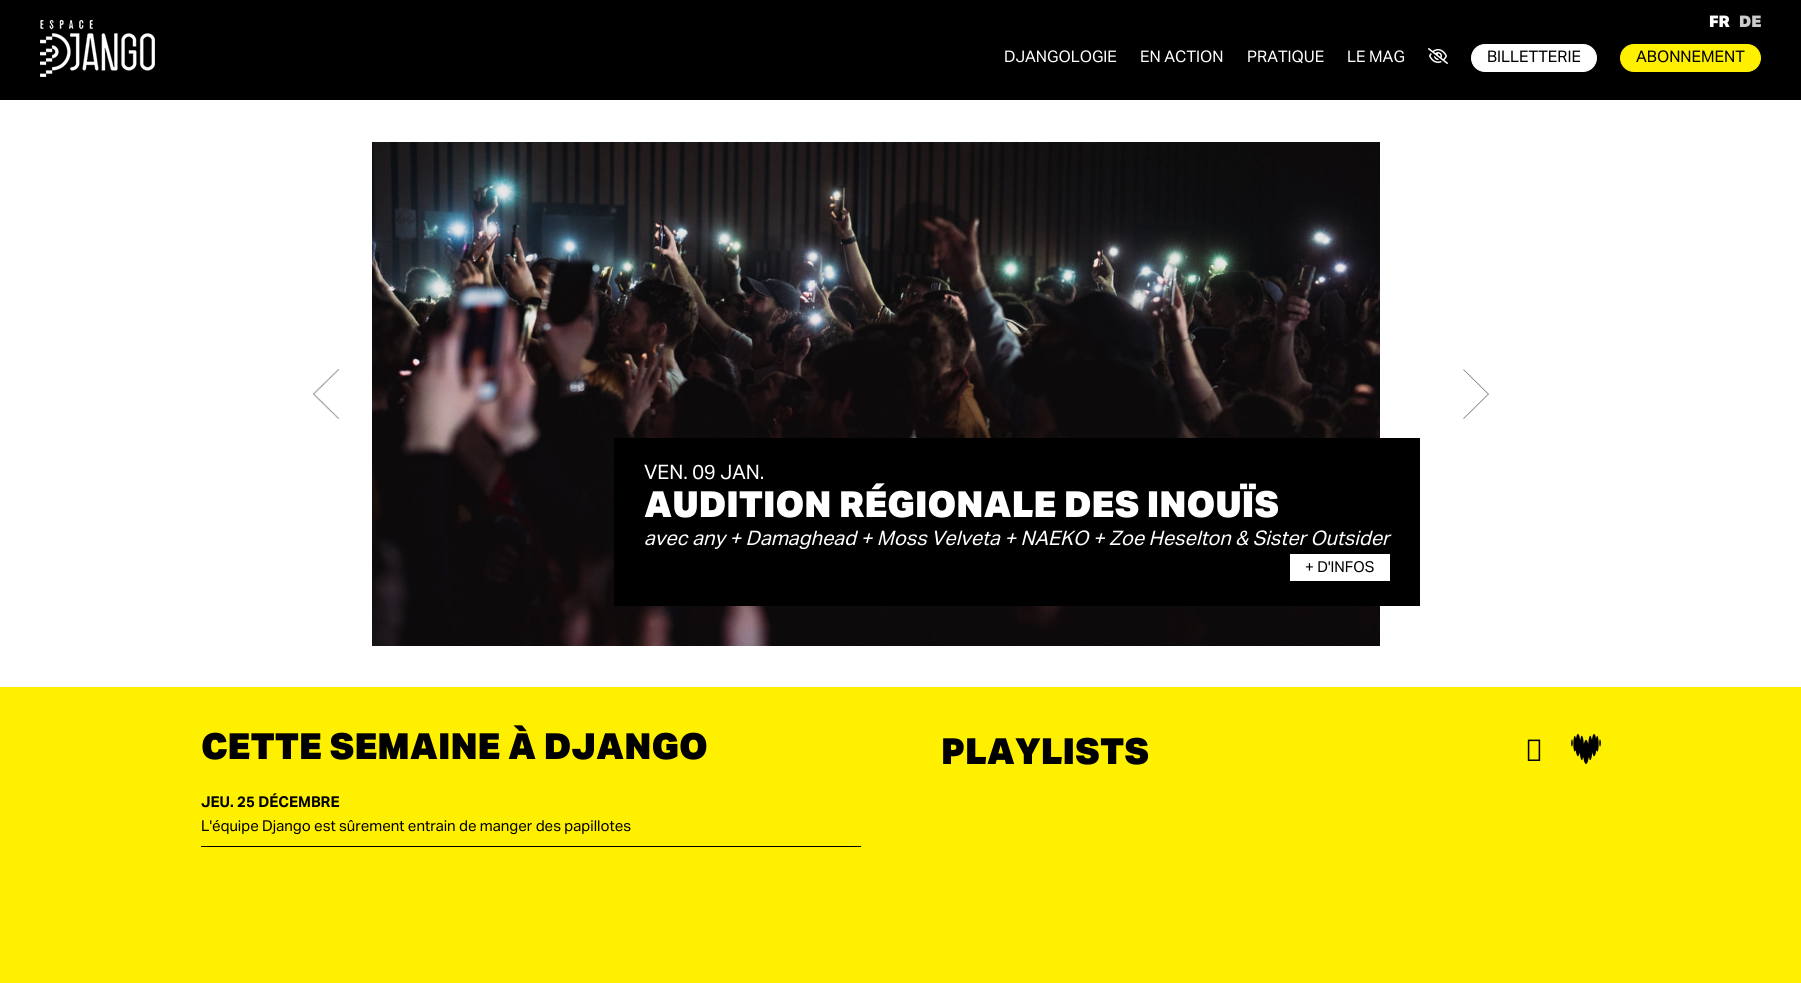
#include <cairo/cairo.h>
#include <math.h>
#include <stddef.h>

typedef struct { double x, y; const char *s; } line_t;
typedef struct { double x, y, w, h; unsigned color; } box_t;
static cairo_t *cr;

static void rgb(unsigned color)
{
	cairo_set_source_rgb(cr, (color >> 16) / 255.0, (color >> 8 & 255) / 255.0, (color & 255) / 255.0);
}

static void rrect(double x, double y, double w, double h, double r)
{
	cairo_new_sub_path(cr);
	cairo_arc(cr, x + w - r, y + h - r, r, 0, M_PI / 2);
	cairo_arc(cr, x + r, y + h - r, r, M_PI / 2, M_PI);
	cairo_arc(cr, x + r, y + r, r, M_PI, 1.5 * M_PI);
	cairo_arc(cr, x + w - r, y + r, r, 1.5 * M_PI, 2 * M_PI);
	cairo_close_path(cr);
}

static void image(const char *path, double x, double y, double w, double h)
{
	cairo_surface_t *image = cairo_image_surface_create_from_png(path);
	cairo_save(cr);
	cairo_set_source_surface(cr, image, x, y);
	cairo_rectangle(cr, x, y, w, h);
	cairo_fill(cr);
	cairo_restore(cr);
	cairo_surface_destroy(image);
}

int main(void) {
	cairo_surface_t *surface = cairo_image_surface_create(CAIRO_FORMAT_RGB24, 1801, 983);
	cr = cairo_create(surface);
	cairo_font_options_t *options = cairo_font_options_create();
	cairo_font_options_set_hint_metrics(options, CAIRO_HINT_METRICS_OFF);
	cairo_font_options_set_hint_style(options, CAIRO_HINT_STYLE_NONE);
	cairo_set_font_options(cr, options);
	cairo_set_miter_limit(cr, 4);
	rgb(0xffffff);
	cairo_paint(cr);
	rgb(0x000000);
	cairo_rectangle(cr, 0, 0, 1801, 100);
	cairo_fill(cr);
	image("img/1.png", 40, 20, 115, 57);
	image("img/2.png", 1428, 48, 20, 16);
	rgb(0xffffff);
	rrect(1471.5, 44.5, 125, 27, 13.5);
	cairo_fill_preserve(cr);
	cairo_set_line_width(cr, 1);
	cairo_stroke(cr);
	rgb(0xfff000);
	rrect(1620.5, 44.5, 140, 27, 13.5);
	cairo_fill_preserve(cr);
	cairo_stroke(cr);
	image("img/3.png", 313, 369, 26, 50);
	image("img/4.png", 1463, 369, 26, 50);
	image("img/5.png", 372, 142, 1008, 504);
	{
		static const box_t items[] = {
			{614, 438, 806, 168, 0x000000},
			{1290, 554, 100, 27, 0xffffff},
			{0, 687, 1801, 296, 0xfff000},
			{201, 846, 660, 1, 0x000000},
		};
		for (size_t i = 0; i < sizeof items / sizeof *items; i++) {
			rgb(items[i].color);
			cairo_rectangle(cr, items[i].x, items[i].y, items[i].w, items[i].h);
			cairo_fill(cr);
		}
	}
	image("img/6.png", 1527, 739, 14, 22);
	image("img/7.png", 1571, 734, 30, 30);
	cairo_select_font_face(cr, "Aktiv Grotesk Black", CAIRO_FONT_SLANT_NORMAL, CAIRO_FONT_WEIGHT_NORMAL);
	cairo_set_font_size(cr, 16);
	rgb(0xffffff);
	cairo_move_to(cr, 1709, 27);
	cairo_show_text(cr, "FR");
	rgb(0xcccccc);
	cairo_move_to(cr, 1739, 27);
	cairo_show_text(cr, "DE");
	cairo_select_font_face(cr, "Aktiv Grotesk", CAIRO_FONT_SLANT_NORMAL, CAIRO_FONT_WEIGHT_NORMAL);
	rgb(0xffffff);
	{
		static const line_t items[] = {
			{1004, 62, "DJANGOLOGIE"},
			{1140, 62, "EN ACTION"},
			{1247, 62, "PRATIQUE"},
			{1347, 62, "LE MAG"},
		};
		for (size_t i = 0; i < sizeof items / sizeof *items; i++) {
			cairo_move_to(cr, items[i].x, items[i].y);
			cairo_show_text(cr, items[i].s);
		}
	}
	rgb(0x000000);
	cairo_move_to(cr, 1487, 62);
	cairo_show_text(cr, "BILLETTERIE");
	cairo_move_to(cr, 1636, 62);
	cairo_show_text(cr, "ABONNEMENT");
	cairo_set_font_size(cr, 20);
	rgb(0xffffff);
	cairo_move_to(cr, 644, 479);
	cairo_show_text(cr, "VEN. 09 JAN.");
	cairo_select_font_face(cr, "Aktiv Grotesk Black", CAIRO_FONT_SLANT_NORMAL, CAIRO_FONT_WEIGHT_NORMAL);
	cairo_set_font_size(cr, 36);
	cairo_move_to(cr, 644, 517);
	cairo_show_text(cr, "AUDITION RÉGIONALE DES INOUÏS");
	cairo_select_font_face(cr, "Aktiv Grotesk", CAIRO_FONT_SLANT_ITALIC, CAIRO_FONT_WEIGHT_NORMAL);
	cairo_set_font_size(cr, 20);
	cairo_move_to(cr, 644, 545);
	cairo_show_text(cr, "avec any + Damaghead + Moss Velveta + NAEKO + Zoe Heselton & Sister Outsider");
	cairo_select_font_face(cr, "Aktiv Grotesk", CAIRO_FONT_SLANT_NORMAL, CAIRO_FONT_WEIGHT_NORMAL);
	cairo_set_font_size(cr, 15);
	rgb(0x000000);
	cairo_move_to(cr, 1305, 572);
	cairo_show_text(cr, "+ D'INFOS");
	cairo_select_font_face(cr, "Aktiv Grotesk Black", CAIRO_FONT_SLANT_NORMAL, CAIRO_FONT_WEIGHT_NORMAL);
	cairo_set_font_size(cr, 36);
	cairo_move_to(cr, 201, 759);
	cairo_show_text(cr, "CETTE SEMAINE À DJANGO");
	cairo_select_font_face(cr, "Aktiv Grotesk", CAIRO_FONT_SLANT_NORMAL, CAIRO_FONT_WEIGHT_BOLD);
	cairo_set_font_size(cr, 15);
	cairo_move_to(cr, 201, 807);
	cairo_show_text(cr, "JEU. 25 DÉCEMBRE");
	cairo_select_font_face(cr, "Aktiv Grotesk", CAIRO_FONT_SLANT_NORMAL, CAIRO_FONT_WEIGHT_NORMAL);
	cairo_move_to(cr, 201, 831);
	cairo_show_text(cr, "L'équipe Django est sûrement entrain de manger des papillotes");
	cairo_select_font_face(cr, "Aktiv Grotesk Black", CAIRO_FONT_SLANT_NORMAL, CAIRO_FONT_WEIGHT_NORMAL);
	cairo_set_font_size(cr, 36);
	cairo_move_to(cr, 941, 764);
	cairo_show_text(cr, "PLAYLISTS");
	cairo_surface_write_to_png(surface, "page.png");
	cairo_font_options_destroy(options);
	cairo_destroy(cr);
	cairo_surface_destroy(surface);
	return 0;
}
